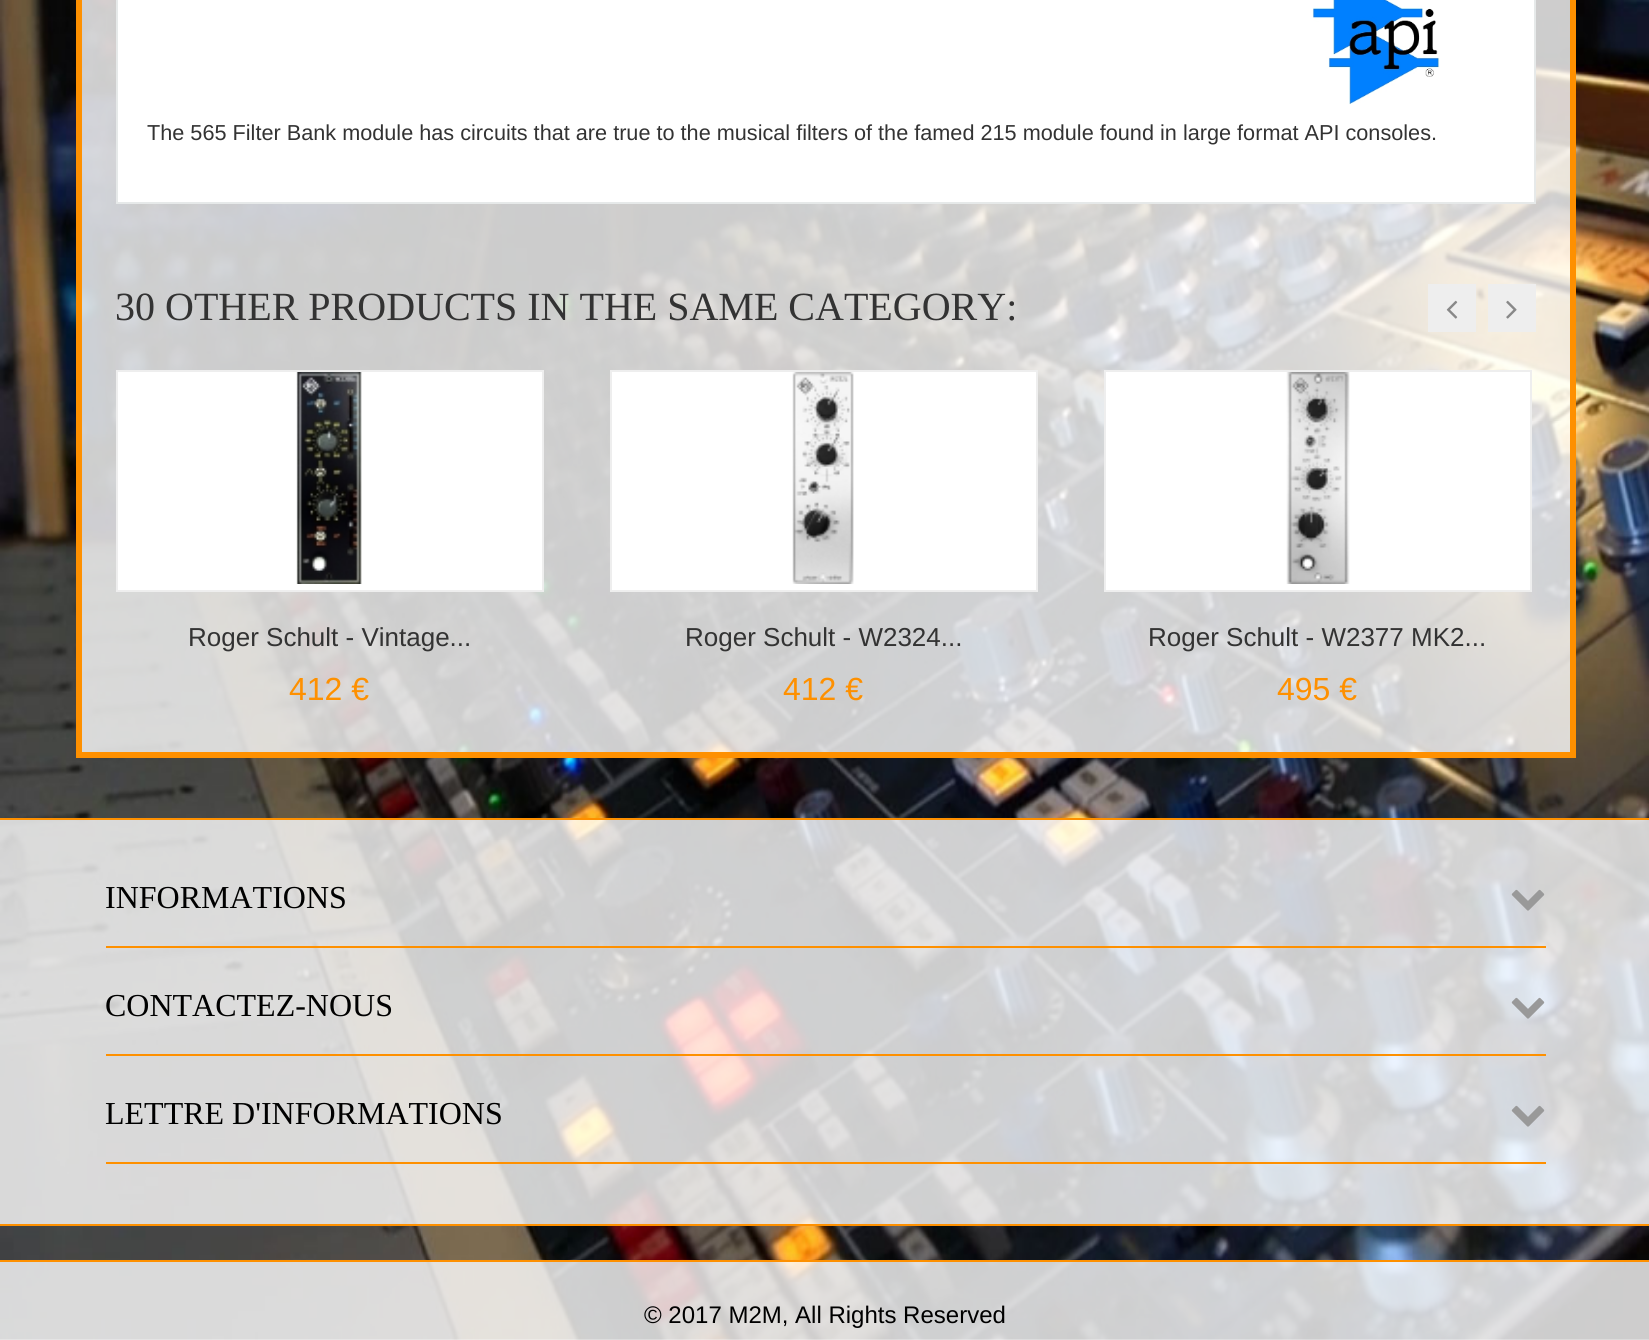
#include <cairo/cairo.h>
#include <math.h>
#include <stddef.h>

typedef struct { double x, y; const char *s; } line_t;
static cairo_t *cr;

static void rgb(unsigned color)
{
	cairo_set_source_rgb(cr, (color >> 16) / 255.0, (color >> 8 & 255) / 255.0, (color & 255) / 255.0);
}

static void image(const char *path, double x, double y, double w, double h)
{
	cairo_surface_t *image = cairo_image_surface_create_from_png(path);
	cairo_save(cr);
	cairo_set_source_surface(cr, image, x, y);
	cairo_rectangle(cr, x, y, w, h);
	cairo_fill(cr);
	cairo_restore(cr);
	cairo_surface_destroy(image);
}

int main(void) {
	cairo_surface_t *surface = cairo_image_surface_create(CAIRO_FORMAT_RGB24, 1649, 1340);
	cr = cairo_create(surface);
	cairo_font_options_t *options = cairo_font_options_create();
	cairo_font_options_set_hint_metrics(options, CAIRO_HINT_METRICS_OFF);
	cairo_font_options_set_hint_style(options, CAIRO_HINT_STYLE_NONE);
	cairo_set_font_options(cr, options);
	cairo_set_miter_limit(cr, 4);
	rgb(0xffffff);
	cairo_paint(cr);
	image("img/1.png", 0, 0, 1649, 1340);
	cairo_set_source_rgba(cr, 1, 1, 1, 0.8);
	cairo_rectangle(cr, 79, -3, 1494, 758);
	cairo_fill_preserve(cr);
	rgb(0xfe9000);
	cairo_set_line_width(cr, 6);
	cairo_stroke(cr);
	rgb(0xffffff);
	cairo_rectangle(cr, 117, -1, 1418, 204);
	cairo_fill_preserve(cr);
	rgb(0xe6e9e9);
	cairo_set_line_width(cr, 2);
	cairo_stroke(cr);
	image("img/2.png", 1312, 0, 128, 105);
	rgb(0xeeeeee);
	cairo_rectangle(cr, 1428, 284, 48, 48);
	cairo_fill(cr);
	image("img/3.png", 1446, 300, 12, 19);
	cairo_rectangle(cr, 1488, 284, 48, 48);
	cairo_fill(cr);
	image("img/4.png", 1506, 300, 11, 19);
	rgb(0xffffff);
	cairo_rectangle(cr, 117, 371, 426, 220);
	cairo_fill_preserve(cr);
	rgb(0xeeeeee);
	cairo_stroke(cr);
	image("img/5.png", 296, 372, 66, 212);
	rgb(0xffffff);
	cairo_rectangle(cr, 611, 371, 426, 220);
	cairo_fill_preserve(cr);
	rgb(0xeeeeee);
	cairo_stroke(cr);
	image("img/6.png", 792, 372, 62, 212);
	rgb(0xffffff);
	cairo_rectangle(cr, 1105, 371, 426, 220);
	cairo_fill_preserve(cr);
	rgb(0xeeeeee);
	cairo_stroke(cr);
	image("img/7.png", 1286, 372, 64, 212);
	cairo_set_source_rgba(cr, 1, 1, 1, 0.8);
	cairo_rectangle(cr, 0, 820, 1649, 404);
	cairo_fill(cr);
	rgb(0xfe9000);
	cairo_rectangle(cr, 0, 818, 1649, 2);
	cairo_fill(cr);
	cairo_rectangle(cr, 0, 1224, 1649, 2);
	cairo_fill(cr);
	cairo_rectangle(cr, 106, 946, 1440, 2);
	cairo_fill(cr);
	image("img/8.png", 1511, 889, 34, 22);
	cairo_rectangle(cr, 106, 1054, 1440, 2);
	cairo_fill(cr);
	image("img/9.png", 1511, 997, 34, 22);
	cairo_rectangle(cr, 106, 1162, 1440, 2);
	cairo_fill(cr);
	image("img/10.png", 1511, 1105, 34, 22);
	cairo_set_source_rgba(cr, 1, 1, 1, 0.8);
	cairo_rectangle(cr, 0, 1262, 1649, 78);
	cairo_fill(cr);
	rgb(0xfe9000);
	cairo_rectangle(cr, 0, 1260, 1649, 2);
	cairo_fill(cr);
	cairo_select_font_face(cr, "Liberation Sans", CAIRO_FONT_SLANT_NORMAL, CAIRO_FONT_WEIGHT_NORMAL);
	cairo_set_font_size(cr, 21.67);
	rgb(0x333333);
	cairo_move_to(cr, 147, 140);
	cairo_show_text(cr, "The 565 Filter Bank module has circuits that are true to the musical filters of the famed 215 module found in large format API consoles.");
	cairo_select_font_face(cr, "Liberation Serif", CAIRO_FONT_SLANT_NORMAL, CAIRO_FONT_WEIGHT_NORMAL);
	cairo_set_font_size(cr, 40);
	cairo_move_to(cr, 115, 320);
	cairo_show_text(cr, "30 OTHER PRODUCTS IN THE SAME CATEGORY:");
	cairo_select_font_face(cr, "Liberation Sans", CAIRO_FONT_SLANT_NORMAL, CAIRO_FONT_WEIGHT_NORMAL);
	cairo_set_font_size(cr, 26);
	cairo_move_to(cr, 188, 646);
	cairo_show_text(cr, "Roger Schult - Vintage...");
	cairo_set_font_size(cr, 32);
	rgb(0xfe9000);
	cairo_move_to(cr, 289, 700);
	cairo_show_text(cr, "412 €");
	cairo_set_font_size(cr, 26);
	rgb(0x333333);
	cairo_move_to(cr, 685, 646);
	cairo_show_text(cr, "Roger Schult - W2324...");
	cairo_set_font_size(cr, 32);
	rgb(0xfe9000);
	cairo_move_to(cr, 783, 700);
	cairo_show_text(cr, "412 €");
	cairo_set_font_size(cr, 26);
	rgb(0x333333);
	cairo_move_to(cr, 1148, 646);
	cairo_show_text(cr, "Roger Schult - W2377 MK2...");
	cairo_set_font_size(cr, 32);
	rgb(0xfe9000);
	cairo_move_to(cr, 1277, 700);
	cairo_show_text(cr, "495 €");
	cairo_select_font_face(cr, "Liberation Serif", CAIRO_FONT_SLANT_NORMAL, CAIRO_FONT_WEIGHT_NORMAL);
	rgb(0x000000);
	{
		static const line_t items[] = {
			{105, 908, "INFORMATIONS"},
			{105, 1016, "CONTACTEZ-NOUS"},
			{105, 1124, "LETTRE D'INFORMATIONS"},
		};
		for (size_t i = 0; i < sizeof items / sizeof *items; i++) {
			cairo_move_to(cr, items[i].x, items[i].y);
			cairo_show_text(cr, items[i].s);
		}
	}
	cairo_select_font_face(cr, "Liberation Sans", CAIRO_FONT_SLANT_NORMAL, CAIRO_FONT_WEIGHT_NORMAL);
	cairo_set_font_size(cr, 24);
	cairo_move_to(cr, 644, 1323);
	cairo_show_text(cr, "© 2017 M2M, All Rights Reserved");
	cairo_surface_write_to_png(surface, "page.png");
	cairo_font_options_destroy(options);
	cairo_destroy(cr);
	cairo_surface_destroy(surface);
	return 0;
}
